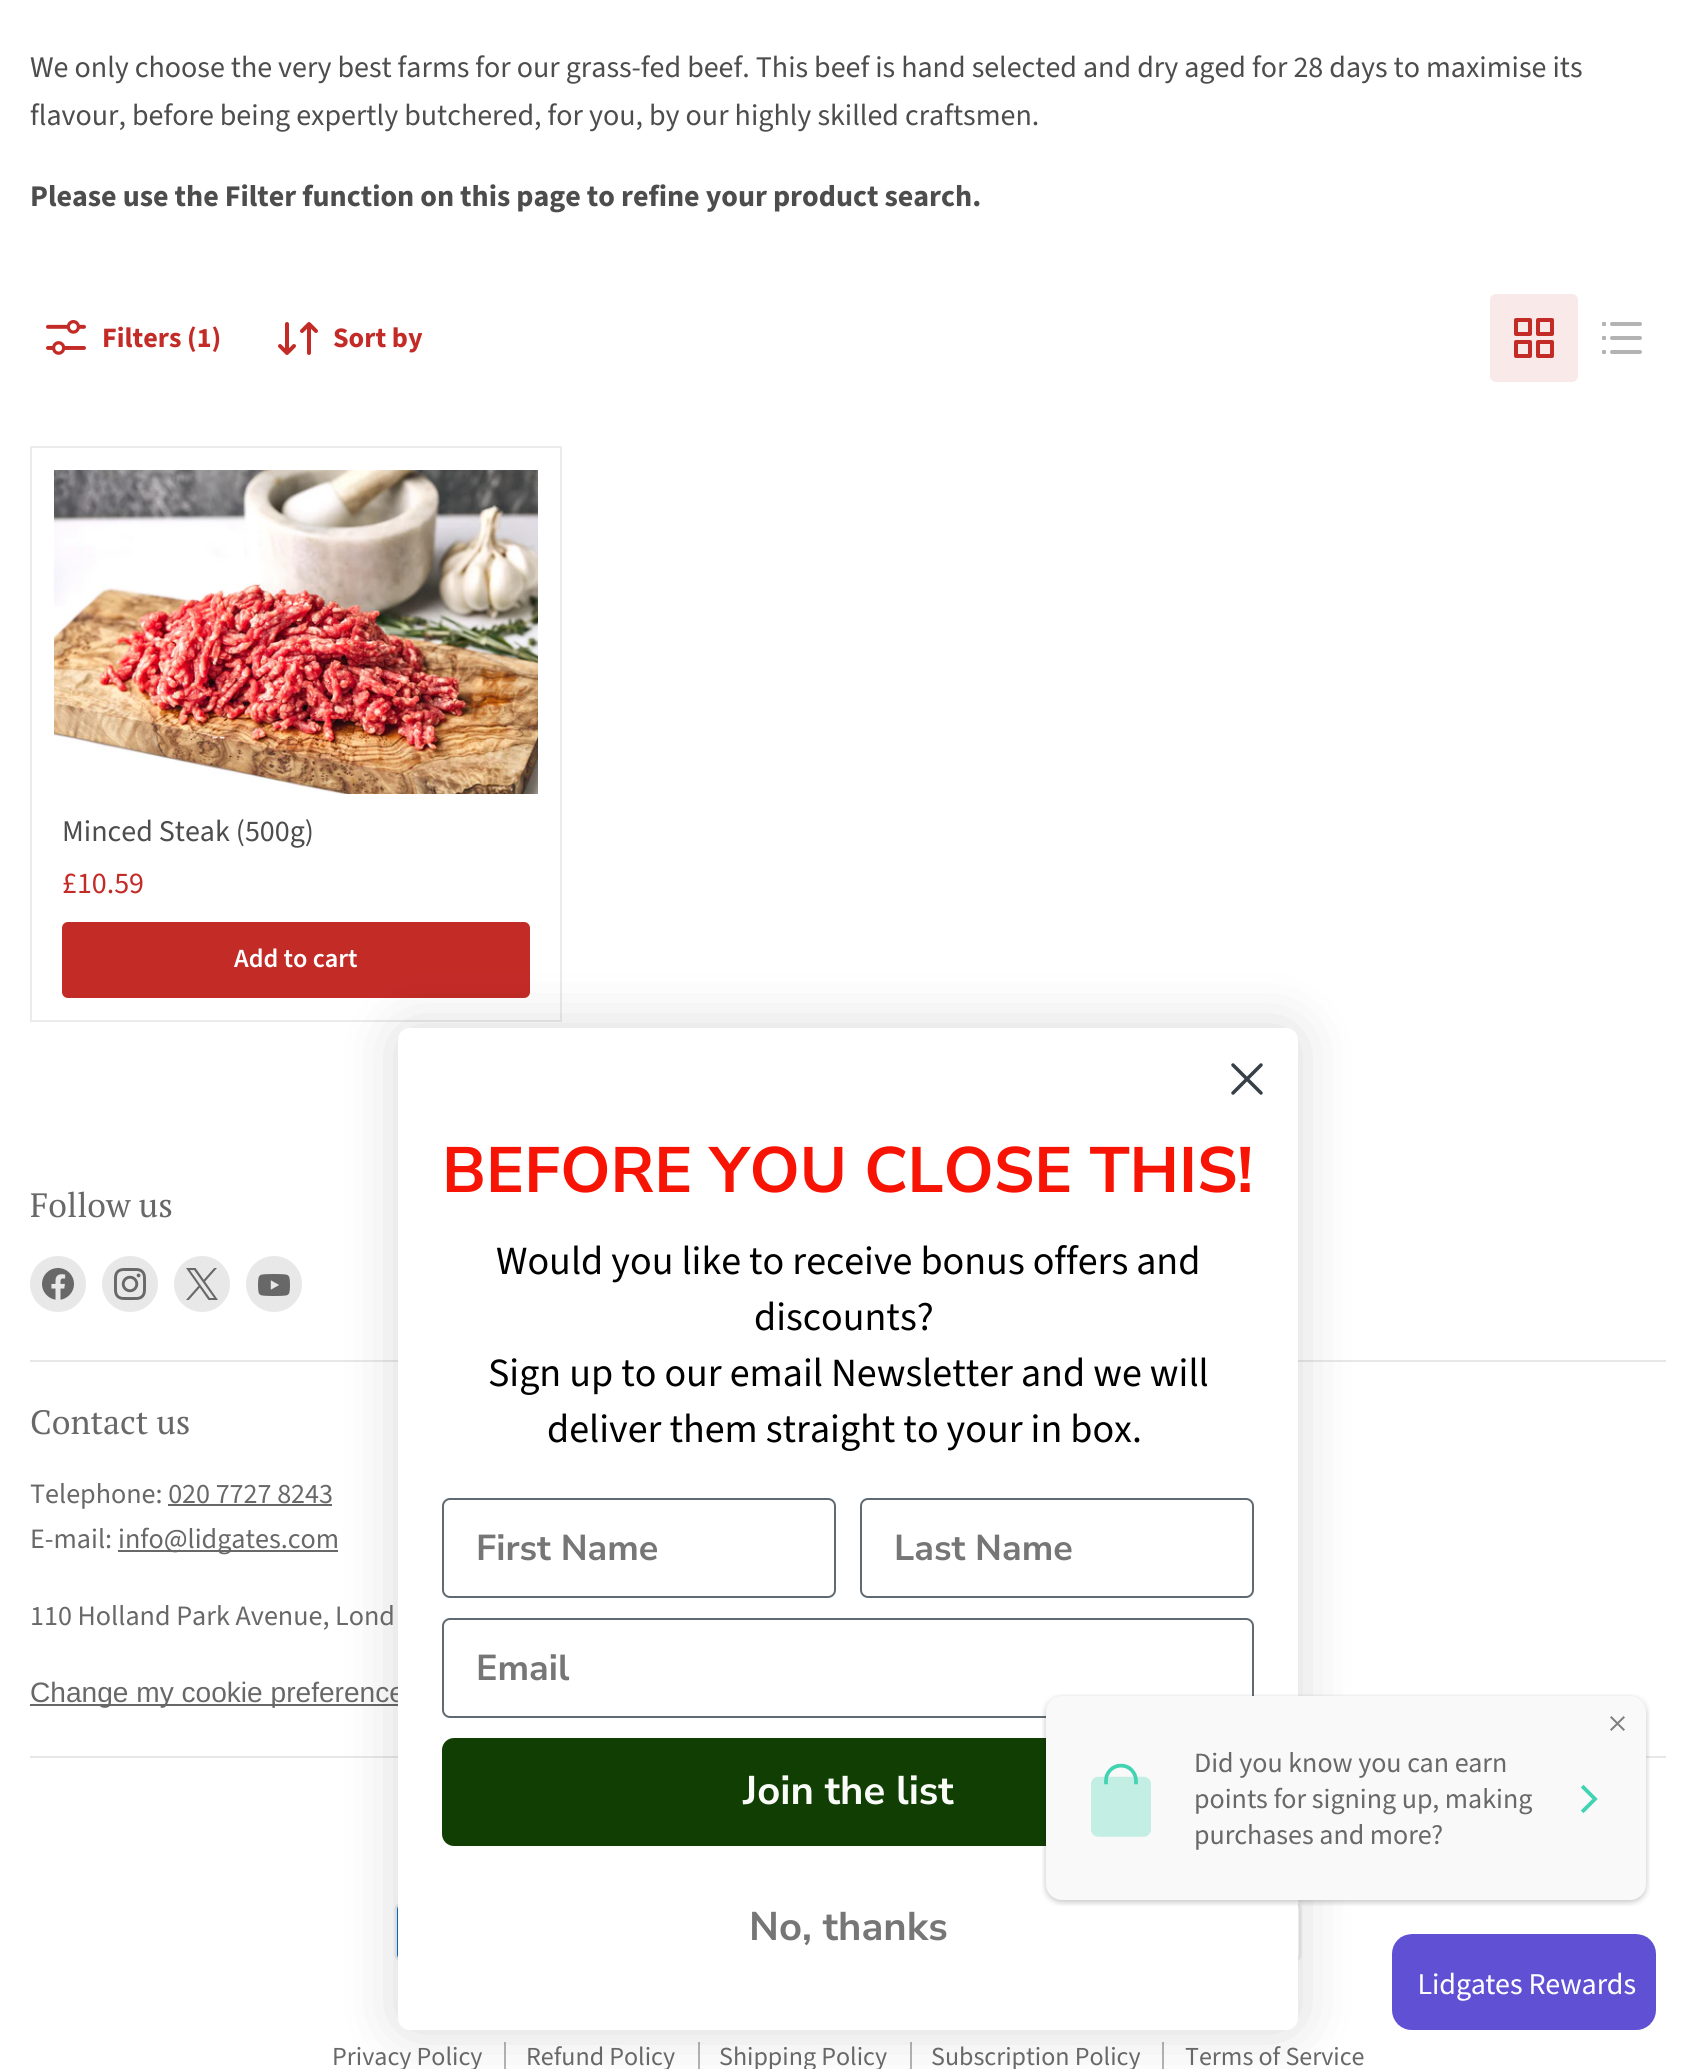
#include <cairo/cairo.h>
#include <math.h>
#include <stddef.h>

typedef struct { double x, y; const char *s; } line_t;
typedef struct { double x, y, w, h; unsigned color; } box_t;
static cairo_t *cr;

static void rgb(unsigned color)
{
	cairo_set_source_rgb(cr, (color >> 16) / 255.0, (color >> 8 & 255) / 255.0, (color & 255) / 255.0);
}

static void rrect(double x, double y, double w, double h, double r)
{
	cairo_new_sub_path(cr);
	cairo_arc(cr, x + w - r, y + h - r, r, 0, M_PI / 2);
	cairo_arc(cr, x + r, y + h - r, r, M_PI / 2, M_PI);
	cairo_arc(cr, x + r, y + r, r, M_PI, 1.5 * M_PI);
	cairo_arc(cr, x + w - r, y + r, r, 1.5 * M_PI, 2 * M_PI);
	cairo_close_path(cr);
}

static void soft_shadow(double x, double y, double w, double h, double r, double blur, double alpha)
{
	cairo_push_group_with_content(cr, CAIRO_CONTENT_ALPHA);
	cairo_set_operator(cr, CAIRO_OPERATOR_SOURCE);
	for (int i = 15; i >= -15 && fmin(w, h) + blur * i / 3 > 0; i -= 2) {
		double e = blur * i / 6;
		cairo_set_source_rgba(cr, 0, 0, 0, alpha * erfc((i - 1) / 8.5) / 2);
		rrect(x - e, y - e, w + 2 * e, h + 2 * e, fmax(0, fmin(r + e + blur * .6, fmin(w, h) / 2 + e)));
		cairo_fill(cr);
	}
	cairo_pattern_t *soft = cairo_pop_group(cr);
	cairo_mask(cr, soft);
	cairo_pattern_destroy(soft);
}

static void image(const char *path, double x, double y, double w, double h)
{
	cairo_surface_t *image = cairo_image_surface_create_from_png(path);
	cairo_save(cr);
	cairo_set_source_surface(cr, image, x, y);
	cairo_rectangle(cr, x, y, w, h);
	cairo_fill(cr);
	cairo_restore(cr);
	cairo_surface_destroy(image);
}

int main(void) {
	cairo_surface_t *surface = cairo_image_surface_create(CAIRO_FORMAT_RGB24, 1696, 2069);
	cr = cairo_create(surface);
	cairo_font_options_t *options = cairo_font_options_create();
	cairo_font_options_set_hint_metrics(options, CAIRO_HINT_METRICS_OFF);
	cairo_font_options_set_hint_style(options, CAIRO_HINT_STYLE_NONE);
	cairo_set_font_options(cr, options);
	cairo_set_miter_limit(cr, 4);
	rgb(0xffffff);
	cairo_paint(cr);
	image("img/1.png", 46, 320, 40, 35);
	image("img/2.png", 278, 322, 40, 33);
	rgb(0xf9eae9);
	rrect(1490, 294, 88, 88, 6);
	cairo_fill(cr);
	image("img/3.png", 1514, 318, 40, 40);
	image("img/4.png", 1602, 322, 40, 32);
	cairo_rectangle(cr, 31, 447, 530, 574);
	rgb(0xebebeb);
	cairo_stroke(cr);
	image("img/5.png", 54, 470, 484, 324);
	rgb(0xc32b27);
	rrect(63, 923, 466, 74, 5);
	cairo_fill_preserve(cr);
	cairo_stroke(cr);
	{
		static const box_t items[] = {
			{30, 1360, 1636, 2, 0xe8e8e8},
			{30, 1756, 1636, 2, 0xe8e8e8},
			{168, 1504, 164, 2, 0x686868},
			{118, 1550, 220, 2, 0x686868},
			{30, 1704, 368, 2, 0x686868},
		};
		for (size_t i = 0; i < sizeof items / sizeof *items; i++) {
			rgb(items[i].color);
			cairo_rectangle(cr, items[i].x, items[i].y, items[i].w, items[i].h);
			cairo_fill(cr);
		}
	}
	image("img/10.png", 394, 1903, 4, 58);
	image("img/11.png", 1298, 1903, 4, 58);
	{
		static const box_t items[] = {
			{504, 2042, 2, 27, 0xb4b4b4},
			{698, 2042, 2, 27, 0xb4b4b4},
			{910, 2042, 2, 27, 0xb4b4b4},
			{1162, 2042, 2, 27, 0xb4b4b4},
		};
		for (size_t i = 0; i < sizeof items / sizeof *items; i++) {
			rgb(items[i].color);
			cairo_rectangle(cr, items[i].x, items[i].y, items[i].w, items[i].h);
			cairo_fill(cr);
		}
	}
	rgb(0x000000);
	soft_shadow(398, 1028, 900, 1002, 12, 30, 0.15);
	rgb(0xe8e8e8);
	cairo_arc(cr, 58, 1284, 28, 0, 2 * M_PI);
	cairo_fill(cr);
	image("img/6.png", 42, 1268, 32, 32);
	cairo_arc(cr, 130, 1284, 28, 0, 2 * M_PI);
	cairo_fill(cr);
	image("img/7.png", 114, 1268, 32, 32);
	cairo_arc(cr, 202, 1284, 28, 0, 2 * M_PI);
	cairo_fill(cr);
	image("img/8.png", 186, 1268, 32, 32);
	cairo_arc(cr, 274, 1284, 28, 0, 2 * M_PI);
	cairo_fill(cr);
	image("img/9.png", 258, 1274, 32, 22);
	image("img/13.png", 1392, 1934, 264, 96);
	cairo_select_font_face(cr, "Source Sans Pro", CAIRO_FONT_SLANT_NORMAL, CAIRO_FONT_WEIGHT_NORMAL);
	cairo_set_font_size(cr, 30);
	rgb(0x4d4d4d);
	cairo_move_to(cr, 30, 77);
	cairo_show_text(cr, "We only choose the very best farms for our grass-fed beef. This beef is hand selected and dry aged for 28 days to maximise its");
	cairo_move_to(cr, 30, 125);
	cairo_show_text(cr, "flavour, before being expertly butchered, for you, by our highly skilled craftsmen.");
	cairo_select_font_face(cr, "Source Sans Pro", CAIRO_FONT_SLANT_NORMAL, CAIRO_FONT_WEIGHT_BOLD);
	cairo_move_to(cr, 30, 206);
	cairo_show_text(cr, "Please use the Filter function on this page to refine your product search.");
	cairo_set_font_size(cr, 28.1);
	rgb(0xc32b27);
	cairo_move_to(cr, 102, 347);
	cairo_show_text(cr, "Filters (1)");
	cairo_move_to(cr, 333, 347);
	cairo_show_text(cr, "Sort by");
	cairo_select_font_face(cr, "Source Sans Pro", CAIRO_FONT_SLANT_NORMAL, CAIRO_FONT_WEIGHT_NORMAL);
	cairo_set_font_size(cr, 30);
	rgb(0x4d4d4d);
	cairo_move_to(cr, 62, 841);
	cairo_show_text(cr, "Minced Steak (500g)");
	rgb(0xc32b27);
	cairo_move_to(cr, 62, 893);
	cairo_show_text(cr, "£10.59");
	cairo_select_font_face(cr, "Source Sans Pro SemiBold", CAIRO_FONT_SLANT_NORMAL, CAIRO_FONT_WEIGHT_NORMAL);
	cairo_set_font_size(cr, 26.25);
	rgb(0xffffff);
	cairo_move_to(cr, 234, 967);
	cairo_show_text(cr, "Add to cart");
	cairo_select_font_face(cr, "PT Serif", CAIRO_FONT_SLANT_NORMAL, CAIRO_FONT_WEIGHT_NORMAL);
	cairo_set_font_size(cr, 33.75);
	rgb(0x686868);
	cairo_move_to(cr, 30, 1217);
	cairo_show_text(cr, "Follow us");
	cairo_move_to(cr, 30, 1434);
	cairo_show_text(cr, "Contact us");
	cairo_select_font_face(cr, "Source Sans Pro", CAIRO_FONT_SLANT_NORMAL, CAIRO_FONT_WEIGHT_NORMAL);
	cairo_set_font_size(cr, 28.1);
	{
		static const line_t items[] = {
			{30, 1503, "Telephone: 020 7727 8243"},
			{30, 1548, "E-mail:"},
			{118, 1548, "info@lidgates.com"},
			{30, 1625, "110 Holland Park Avenue, Lond"},
		};
		for (size_t i = 0; i < sizeof items / sizeof *items; i++) {
			cairo_move_to(cr, items[i].x, items[i].y);
			cairo_show_text(cr, items[i].s);
		}
	}
	cairo_select_font_face(cr, "Liberation Sans", CAIRO_FONT_SLANT_NORMAL, CAIRO_FONT_WEIGHT_NORMAL);
	cairo_move_to(cr, 30, 1702);
	cairo_show_text(cr, "Change my cookie preference");
	rgb(0xffffff);
	rrect(398, 1028, 900, 1002, 12);
	cairo_fill(cr);
	cairo_new_path(cr);
	cairo_move_to(cr, 1233, 1065);
	cairo_line_to(cr, 1261, 1093);
	cairo_move_to(cr, 1233, 1093);
	cairo_line_to(cr, 1261, 1065);
	cairo_close_path(cr);
	rgb(0x373f47);
	cairo_set_line_width(cr, 3.5);
	cairo_set_line_cap(cr, CAIRO_LINE_CAP_ROUND);
	cairo_set_line_join(cr, CAIRO_LINE_JOIN_ROUND);
	cairo_stroke(cr);
	cairo_select_font_face(cr, "Nunito Sans", CAIRO_FONT_SLANT_NORMAL, CAIRO_FONT_WEIGHT_BOLD);
	cairo_set_font_size(cr, 40);
	rgb(0x767676);
	cairo_move_to(cr, 749, 1940);
	cairo_show_text(cr, "No, thanks");
	rgb(0x113e03);
	rrect(442, 1738, 812, 108, 12);
	cairo_fill(cr);
	rgb(0xf9fcf8);
	cairo_move_to(cr, 743, 1804);
	cairo_show_text(cr, "Join the list");
	rrect(443, 1619, 810, 98, 7);
	rgb(0x606a72);
	cairo_set_line_width(cr, 2);
	cairo_set_line_cap(cr, CAIRO_LINE_CAP_BUTT);
	cairo_set_line_join(cr, CAIRO_LINE_JOIN_MITER);
	cairo_stroke(cr);
	cairo_set_font_size(cr, 36);
	rgb(0x767676);
	cairo_move_to(cr, 476, 1680);
	cairo_show_text(cr, "Email");
	rrect(861, 1499, 392, 98, 7);
	rgb(0x606a72);
	cairo_stroke(cr);
	rgb(0x767676);
	cairo_move_to(cr, 894, 1560);
	cairo_show_text(cr, "Last Name");
	rrect(443, 1499, 392, 98, 7);
	rgb(0x606a72);
	cairo_stroke(cr);
	rgb(0x767676);
	cairo_move_to(cr, 476, 1560);
	cairo_show_text(cr, "First Name");
	cairo_select_font_face(cr, "Source Sans Pro", CAIRO_FONT_SLANT_NORMAL, CAIRO_FONT_WEIGHT_NORMAL);
	cairo_set_font_size(cr, 40);
	rgb(0x000000);
	{
		static const line_t items[] = {
			{547, 1442, "deliver them straight to your in box."},
			{488, 1386, "Sign up to our email Newsletter and we will"},
			{754, 1330, "discounts?"},
			{496, 1274, "Would you like to receive bonus offers and"},
		};
		for (size_t i = 0; i < sizeof items / sizeof *items; i++) {
			cairo_move_to(cr, items[i].x, items[i].y);
			cairo_show_text(cr, items[i].s);
		}
	}
	cairo_select_font_face(cr, "Nunito Sans", CAIRO_FONT_SLANT_NORMAL, CAIRO_FONT_WEIGHT_BOLD);
	cairo_set_font_size(cr, 64);
	rgb(0xf81405);
	cairo_move_to(cr, 442, 1192);
	cairo_show_text(cr, "BEFORE YOU CLOSE THIS!");
	cairo_select_font_face(cr, "Source Sans Pro", CAIRO_FONT_SLANT_NORMAL, CAIRO_FONT_WEIGHT_NORMAL);
	cairo_set_font_size(cr, 26);
	rgb(0x686868);
	{
		static const line_t items[] = {
			{332, 2065, "Privacy Policy"},
			{526, 2065, "Refund Policy"},
			{719, 2065, "Shipping Policy"},
			{931, 2065, "Subscription Policy"},
			{1185, 2065, "Terms of Service"},
		};
		for (size_t i = 0; i < sizeof items / sizeof *items; i++) {
			cairo_move_to(cr, items[i].x, items[i].y);
			cairo_show_text(cr, items[i].s);
		}
	}
	image("img/12.png", 1042, 1694, 608, 212);
	cairo_surface_write_to_png(surface, "page.png");
	cairo_font_options_destroy(options);
	cairo_destroy(cr);
	cairo_surface_destroy(surface);
	return 0;
}
